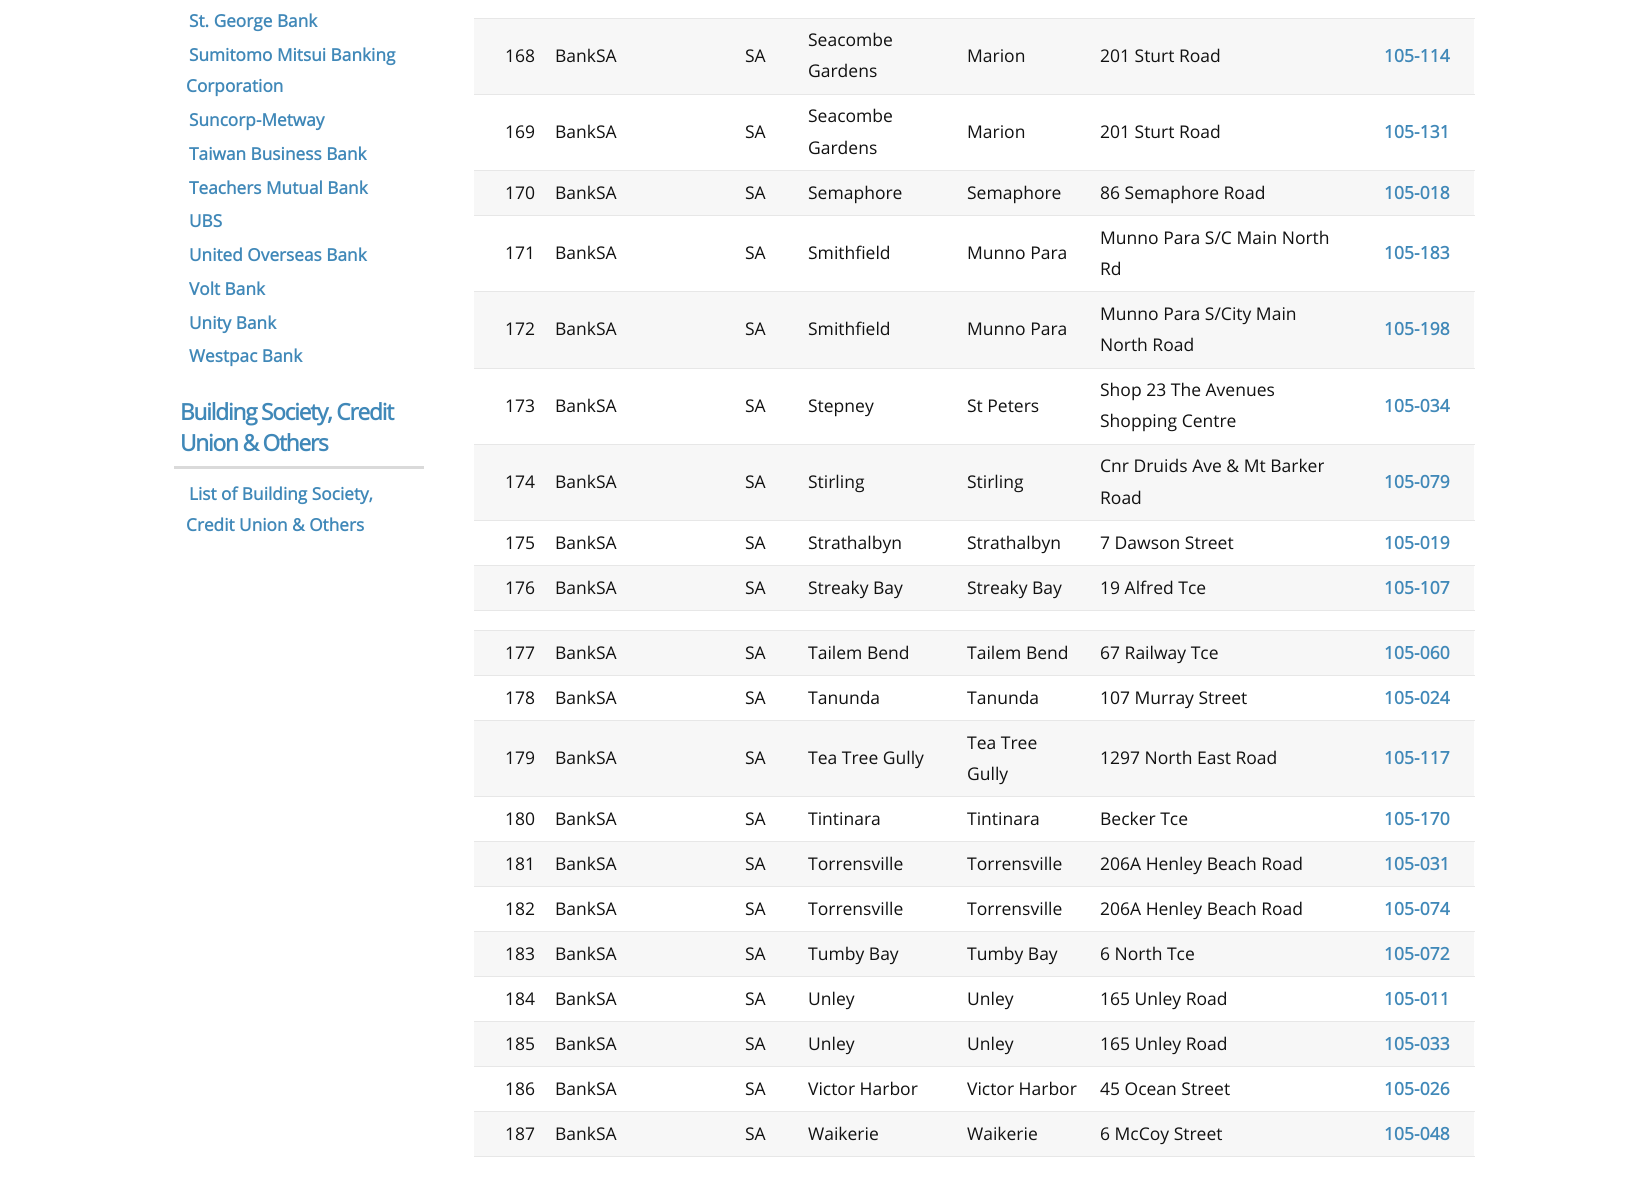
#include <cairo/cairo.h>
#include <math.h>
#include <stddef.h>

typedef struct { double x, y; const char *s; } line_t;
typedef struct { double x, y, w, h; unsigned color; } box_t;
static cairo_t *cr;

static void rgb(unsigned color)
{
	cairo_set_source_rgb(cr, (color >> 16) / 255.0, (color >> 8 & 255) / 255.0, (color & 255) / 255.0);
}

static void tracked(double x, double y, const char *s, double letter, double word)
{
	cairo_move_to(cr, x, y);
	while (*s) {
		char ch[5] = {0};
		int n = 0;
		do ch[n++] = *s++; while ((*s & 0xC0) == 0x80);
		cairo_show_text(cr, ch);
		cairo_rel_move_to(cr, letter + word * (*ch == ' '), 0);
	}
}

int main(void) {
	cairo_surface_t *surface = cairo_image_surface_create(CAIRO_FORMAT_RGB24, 1647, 1187);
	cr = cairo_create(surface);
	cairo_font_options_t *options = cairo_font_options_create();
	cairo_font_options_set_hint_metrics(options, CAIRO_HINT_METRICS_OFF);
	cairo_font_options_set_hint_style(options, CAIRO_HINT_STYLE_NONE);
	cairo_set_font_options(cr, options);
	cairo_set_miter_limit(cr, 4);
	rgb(0xffffff);
	cairo_paint(cr);
	{
		static const box_t items[] = {
			{174, 466, 250, 3, 0xdadada},
			{474, 19, 1000, 75, 0xf7f7f7},
			{474, 18, 1001, 1, 0xe7e7e7},
			{474, 94, 1001, 1, 0xe7e7e7},
			{474, 171, 1000, 44, 0xf7f7f7},
			{474, 170, 1001, 1, 0xe7e7e7},
			{474, 215, 1001, 1, 0xe7e7e7},
			{474, 292, 1000, 76, 0xf7f7f7},
			{474, 291, 1001, 1, 0xe7e7e7},
			{474, 368, 1001, 1, 0xe7e7e7},
			{474, 445, 1000, 75, 0xf7f7f7},
			{474, 444, 1001, 1, 0xe7e7e7},
			{474, 520, 1001, 1, 0xe7e7e7},
			{474, 566, 1000, 44, 0xf7f7f7},
			{474, 565, 1001, 1, 0xe7e7e7},
			{474, 610, 1001, 1, 0xe7e7e7},
			{474, 631, 1000, 44, 0xf7f7f7},
			{474, 630, 1001, 1, 0xe7e7e7},
			{474, 675, 1001, 1, 0xe7e7e7},
			{474, 721, 1000, 75, 0xf7f7f7},
			{474, 720, 1001, 1, 0xe7e7e7},
			{474, 796, 1001, 1, 0xe7e7e7},
			{474, 842, 1000, 44, 0xf7f7f7},
			{474, 841, 1001, 1, 0xe7e7e7},
			{474, 886, 1001, 1, 0xe7e7e7},
			{474, 932, 1000, 44, 0xf7f7f7},
			{474, 931, 1001, 1, 0xe7e7e7},
			{474, 976, 1001, 1, 0xe7e7e7},
			{474, 1022, 1000, 44, 0xf7f7f7},
			{474, 1021, 1001, 1, 0xe7e7e7},
			{474, 1066, 1001, 1, 0xe7e7e7},
			{474, 1112, 1000, 44, 0xf7f7f7},
			{474, 1111, 1001, 1, 0xe7e7e7},
			{474, 1156, 1001, 1, 0xe7e7e7},
		};
		for (size_t i = 0; i < sizeof items / sizeof *items; i++) {
			rgb(items[i].color);
			cairo_rectangle(cr, items[i].x, items[i].y, items[i].w, items[i].h);
			cairo_fill(cr);
		}
	}
	cairo_select_font_face(cr, "Open Sans", CAIRO_FONT_SLANT_NORMAL, CAIRO_FONT_WEIGHT_BOLD);
	cairo_set_font_size(cr, 17.25);
	rgb(0x4088b8);
	{
		static const line_t items[] = {
			{189, 27, "St. George Bank"},
			{189, 61, "Sumitomo Mitsui Banking"},
			{186, 92, "Corporation"},
			{189, 126, "Suncorp-Metway"},
			{189, 160, "Taiwan Business Bank"},
			{189, 194, "Teachers Mutual Bank"},
			{189, 227, "UBS"},
			{189, 261, "United Overseas Bank"},
			{189, 295, "Volt Bank"},
			{189, 329, "Unity Bank"},
			{189, 362, "Westpac Bank"},
		};
		for (size_t i = 0; i < sizeof items / sizeof *items; i++) {
			cairo_move_to(cr, items[i].x, items[i].y);
			cairo_show_text(cr, items[i].s);
		}
	}
	cairo_set_font_size(cr, 22.75);
	tracked(180, 420, "Building Society, Credit", -1.25, 0);
	tracked(180, 451, "Union & Others", -1.25, 0);
	cairo_set_font_size(cr, 17.25);
	cairo_move_to(cr, 189, 500);
	cairo_show_text(cr, "List of Building Society,");
	cairo_move_to(cr, 186, 531);
	cairo_show_text(cr, "Credit Union & Others");
	cairo_select_font_face(cr, "Open Sans", CAIRO_FONT_SLANT_NORMAL, CAIRO_FONT_WEIGHT_NORMAL);
	cairo_set_font_size(cr, 17.5);
	rgb(0x111111);
	{
		static const line_t items[] = {
			{505, 62, "168"},
			{555, 62, "BankSA"},
			{745, 62, "SA"},
			{808, 46, "Seacombe"},
			{808, 77, "Gardens"},
			{967, 62, "Marion"},
			{1100, 62, "201 Sturt Road"},
		};
		for (size_t i = 0; i < sizeof items / sizeof *items; i++) {
			cairo_move_to(cr, items[i].x, items[i].y);
			cairo_show_text(cr, items[i].s);
		}
	}
	cairo_select_font_face(cr, "Open Sans", CAIRO_FONT_SLANT_NORMAL, CAIRO_FONT_WEIGHT_BOLD);
	rgb(0x4088b8);
	cairo_move_to(cr, 1384, 62);
	cairo_show_text(cr, "105-114");
	cairo_select_font_face(cr, "Open Sans", CAIRO_FONT_SLANT_NORMAL, CAIRO_FONT_WEIGHT_NORMAL);
	rgb(0x111111);
	{
		static const line_t items[] = {
			{505, 138, "169"},
			{555, 138, "BankSA"},
			{745, 138, "SA"},
			{808, 122, "Seacombe"},
			{808, 154, "Gardens"},
			{967, 138, "Marion"},
			{1100, 138, "201 Sturt Road"},
		};
		for (size_t i = 0; i < sizeof items / sizeof *items; i++) {
			cairo_move_to(cr, items[i].x, items[i].y);
			cairo_show_text(cr, items[i].s);
		}
	}
	cairo_select_font_face(cr, "Open Sans", CAIRO_FONT_SLANT_NORMAL, CAIRO_FONT_WEIGHT_BOLD);
	rgb(0x4088b8);
	cairo_move_to(cr, 1384, 138);
	cairo_show_text(cr, "105-131");
	cairo_select_font_face(cr, "Open Sans", CAIRO_FONT_SLANT_NORMAL, CAIRO_FONT_WEIGHT_NORMAL);
	rgb(0x111111);
	{
		static const line_t items[] = {
			{505, 199, "170"},
			{555, 199, "BankSA"},
			{745, 199, "SA"},
			{808, 199, "Semaphore"},
			{967, 199, "Semaphore"},
			{1100, 199, "86 Semaphore Road"},
		};
		for (size_t i = 0; i < sizeof items / sizeof *items; i++) {
			cairo_move_to(cr, items[i].x, items[i].y);
			cairo_show_text(cr, items[i].s);
		}
	}
	cairo_select_font_face(cr, "Open Sans", CAIRO_FONT_SLANT_NORMAL, CAIRO_FONT_WEIGHT_BOLD);
	rgb(0x4088b8);
	cairo_move_to(cr, 1384, 199);
	cairo_show_text(cr, "105-018");
	cairo_select_font_face(cr, "Open Sans", CAIRO_FONT_SLANT_NORMAL, CAIRO_FONT_WEIGHT_NORMAL);
	rgb(0x111111);
	{
		static const line_t items[] = {
			{505, 259, "171"},
			{555, 259, "BankSA"},
			{745, 259, "SA"},
			{808, 259, "Smithfield"},
			{967, 259, "Munno Para"},
			{1100, 244, "Munno Para S/C Main North"},
			{1100, 275, "Rd"},
		};
		for (size_t i = 0; i < sizeof items / sizeof *items; i++) {
			cairo_move_to(cr, items[i].x, items[i].y);
			cairo_show_text(cr, items[i].s);
		}
	}
	cairo_select_font_face(cr, "Open Sans", CAIRO_FONT_SLANT_NORMAL, CAIRO_FONT_WEIGHT_BOLD);
	rgb(0x4088b8);
	cairo_move_to(cr, 1384, 259);
	cairo_show_text(cr, "105-183");
	cairo_select_font_face(cr, "Open Sans", CAIRO_FONT_SLANT_NORMAL, CAIRO_FONT_WEIGHT_NORMAL);
	rgb(0x111111);
	{
		static const line_t items[] = {
			{505, 335, "172"},
			{555, 335, "BankSA"},
			{745, 335, "SA"},
			{808, 335, "Smithfield"},
			{967, 335, "Munno Para"},
			{1100, 320, "Munno Para S/City Main"},
			{1100, 351, "North Road"},
		};
		for (size_t i = 0; i < sizeof items / sizeof *items; i++) {
			cairo_move_to(cr, items[i].x, items[i].y);
			cairo_show_text(cr, items[i].s);
		}
	}
	cairo_select_font_face(cr, "Open Sans", CAIRO_FONT_SLANT_NORMAL, CAIRO_FONT_WEIGHT_BOLD);
	rgb(0x4088b8);
	cairo_move_to(cr, 1384, 335);
	cairo_show_text(cr, "105-198");
	cairo_select_font_face(cr, "Open Sans", CAIRO_FONT_SLANT_NORMAL, CAIRO_FONT_WEIGHT_NORMAL);
	rgb(0x111111);
	{
		static const line_t items[] = {
			{505, 412, "173"},
			{555, 412, "BankSA"},
			{745, 412, "SA"},
			{808, 412, "Stepney"},
			{967, 412, "St Peters"},
			{1100, 396, "Shop 23 The Avenues"},
			{1100, 427, "Shopping Centre"},
		};
		for (size_t i = 0; i < sizeof items / sizeof *items; i++) {
			cairo_move_to(cr, items[i].x, items[i].y);
			cairo_show_text(cr, items[i].s);
		}
	}
	cairo_select_font_face(cr, "Open Sans", CAIRO_FONT_SLANT_NORMAL, CAIRO_FONT_WEIGHT_BOLD);
	rgb(0x4088b8);
	cairo_move_to(cr, 1384, 412);
	cairo_show_text(cr, "105-034");
	cairo_select_font_face(cr, "Open Sans", CAIRO_FONT_SLANT_NORMAL, CAIRO_FONT_WEIGHT_NORMAL);
	rgb(0x111111);
	{
		static const line_t items[] = {
			{505, 488, "174"},
			{555, 488, "BankSA"},
			{745, 488, "SA"},
			{808, 488, "Stirling"},
			{967, 488, "Stirling"},
			{1100, 472, "Cnr Druids Ave & Mt Barker"},
			{1100, 504, "Road"},
		};
		for (size_t i = 0; i < sizeof items / sizeof *items; i++) {
			cairo_move_to(cr, items[i].x, items[i].y);
			cairo_show_text(cr, items[i].s);
		}
	}
	cairo_select_font_face(cr, "Open Sans", CAIRO_FONT_SLANT_NORMAL, CAIRO_FONT_WEIGHT_BOLD);
	rgb(0x4088b8);
	cairo_move_to(cr, 1384, 488);
	cairo_show_text(cr, "105-079");
	cairo_select_font_face(cr, "Open Sans", CAIRO_FONT_SLANT_NORMAL, CAIRO_FONT_WEIGHT_NORMAL);
	rgb(0x111111);
	{
		static const line_t items[] = {
			{505, 549, "175"},
			{555, 549, "BankSA"},
			{745, 549, "SA"},
			{808, 549, "Strathalbyn"},
			{967, 549, "Strathalbyn"},
			{1100, 549, "7 Dawson Street"},
		};
		for (size_t i = 0; i < sizeof items / sizeof *items; i++) {
			cairo_move_to(cr, items[i].x, items[i].y);
			cairo_show_text(cr, items[i].s);
		}
	}
	cairo_select_font_face(cr, "Open Sans", CAIRO_FONT_SLANT_NORMAL, CAIRO_FONT_WEIGHT_BOLD);
	rgb(0x4088b8);
	cairo_move_to(cr, 1384, 549);
	cairo_show_text(cr, "105-019");
	cairo_select_font_face(cr, "Open Sans", CAIRO_FONT_SLANT_NORMAL, CAIRO_FONT_WEIGHT_NORMAL);
	rgb(0x111111);
	{
		static const line_t items[] = {
			{505, 594, "176"},
			{555, 594, "BankSA"},
			{745, 594, "SA"},
			{808, 594, "Streaky Bay"},
			{967, 594, "Streaky Bay"},
			{1100, 594, "19 Alfred Tce"},
		};
		for (size_t i = 0; i < sizeof items / sizeof *items; i++) {
			cairo_move_to(cr, items[i].x, items[i].y);
			cairo_show_text(cr, items[i].s);
		}
	}
	cairo_select_font_face(cr, "Open Sans", CAIRO_FONT_SLANT_NORMAL, CAIRO_FONT_WEIGHT_BOLD);
	rgb(0x4088b8);
	cairo_move_to(cr, 1384, 594);
	cairo_show_text(cr, "105-107");
	cairo_select_font_face(cr, "Open Sans", CAIRO_FONT_SLANT_NORMAL, CAIRO_FONT_WEIGHT_NORMAL);
	rgb(0x111111);
	{
		static const line_t items[] = {
			{505, 659, "177"},
			{555, 659, "BankSA"},
			{745, 659, "SA"},
			{808, 659, "Tailem Bend"},
			{967, 659, "Tailem Bend"},
			{1100, 659, "67 Railway Tce"},
		};
		for (size_t i = 0; i < sizeof items / sizeof *items; i++) {
			cairo_move_to(cr, items[i].x, items[i].y);
			cairo_show_text(cr, items[i].s);
		}
	}
	cairo_select_font_face(cr, "Open Sans", CAIRO_FONT_SLANT_NORMAL, CAIRO_FONT_WEIGHT_BOLD);
	rgb(0x4088b8);
	cairo_move_to(cr, 1384, 659);
	cairo_show_text(cr, "105-060");
	cairo_select_font_face(cr, "Open Sans", CAIRO_FONT_SLANT_NORMAL, CAIRO_FONT_WEIGHT_NORMAL);
	rgb(0x111111);
	{
		static const line_t items[] = {
			{505, 704, "178"},
			{555, 704, "BankSA"},
			{745, 704, "SA"},
			{808, 704, "Tanunda"},
			{967, 704, "Tanunda"},
			{1100, 704, "107 Murray Street"},
		};
		for (size_t i = 0; i < sizeof items / sizeof *items; i++) {
			cairo_move_to(cr, items[i].x, items[i].y);
			cairo_show_text(cr, items[i].s);
		}
	}
	cairo_select_font_face(cr, "Open Sans", CAIRO_FONT_SLANT_NORMAL, CAIRO_FONT_WEIGHT_BOLD);
	rgb(0x4088b8);
	cairo_move_to(cr, 1384, 704);
	cairo_show_text(cr, "105-024");
	cairo_select_font_face(cr, "Open Sans", CAIRO_FONT_SLANT_NORMAL, CAIRO_FONT_WEIGHT_NORMAL);
	rgb(0x111111);
	{
		static const line_t items[] = {
			{505, 764, "179"},
			{555, 764, "BankSA"},
			{745, 764, "SA"},
			{808, 764, "Tea Tree Gully"},
			{967, 749, "Tea Tree"},
			{967, 780, "Gully"},
			{1100, 764, "1297 North East Road"},
		};
		for (size_t i = 0; i < sizeof items / sizeof *items; i++) {
			cairo_move_to(cr, items[i].x, items[i].y);
			cairo_show_text(cr, items[i].s);
		}
	}
	cairo_select_font_face(cr, "Open Sans", CAIRO_FONT_SLANT_NORMAL, CAIRO_FONT_WEIGHT_BOLD);
	rgb(0x4088b8);
	cairo_move_to(cr, 1384, 764);
	cairo_show_text(cr, "105-117");
	cairo_select_font_face(cr, "Open Sans", CAIRO_FONT_SLANT_NORMAL, CAIRO_FONT_WEIGHT_NORMAL);
	rgb(0x111111);
	{
		static const line_t items[] = {
			{505, 825, "180"},
			{555, 825, "BankSA"},
			{745, 825, "SA"},
			{808, 825, "Tintinara"},
			{967, 825, "Tintinara"},
			{1100, 825, "Becker Tce"},
		};
		for (size_t i = 0; i < sizeof items / sizeof *items; i++) {
			cairo_move_to(cr, items[i].x, items[i].y);
			cairo_show_text(cr, items[i].s);
		}
	}
	cairo_select_font_face(cr, "Open Sans", CAIRO_FONT_SLANT_NORMAL, CAIRO_FONT_WEIGHT_BOLD);
	rgb(0x4088b8);
	cairo_move_to(cr, 1384, 825);
	cairo_show_text(cr, "105-170");
	cairo_select_font_face(cr, "Open Sans", CAIRO_FONT_SLANT_NORMAL, CAIRO_FONT_WEIGHT_NORMAL);
	rgb(0x111111);
	{
		static const line_t items[] = {
			{505, 870, "181"},
			{555, 870, "BankSA"},
			{745, 870, "SA"},
			{808, 870, "Torrensville"},
			{967, 870, "Torrensville"},
			{1100, 870, "206A Henley Beach Road"},
		};
		for (size_t i = 0; i < sizeof items / sizeof *items; i++) {
			cairo_move_to(cr, items[i].x, items[i].y);
			cairo_show_text(cr, items[i].s);
		}
	}
	cairo_select_font_face(cr, "Open Sans", CAIRO_FONT_SLANT_NORMAL, CAIRO_FONT_WEIGHT_BOLD);
	rgb(0x4088b8);
	cairo_move_to(cr, 1384, 870);
	cairo_show_text(cr, "105-031");
	cairo_select_font_face(cr, "Open Sans", CAIRO_FONT_SLANT_NORMAL, CAIRO_FONT_WEIGHT_NORMAL);
	rgb(0x111111);
	{
		static const line_t items[] = {
			{505, 915, "182"},
			{555, 915, "BankSA"},
			{745, 915, "SA"},
			{808, 915, "Torrensville"},
			{967, 915, "Torrensville"},
			{1100, 915, "206A Henley Beach Road"},
		};
		for (size_t i = 0; i < sizeof items / sizeof *items; i++) {
			cairo_move_to(cr, items[i].x, items[i].y);
			cairo_show_text(cr, items[i].s);
		}
	}
	cairo_select_font_face(cr, "Open Sans", CAIRO_FONT_SLANT_NORMAL, CAIRO_FONT_WEIGHT_BOLD);
	rgb(0x4088b8);
	cairo_move_to(cr, 1384, 915);
	cairo_show_text(cr, "105-074");
	cairo_select_font_face(cr, "Open Sans", CAIRO_FONT_SLANT_NORMAL, CAIRO_FONT_WEIGHT_NORMAL);
	rgb(0x111111);
	{
		static const line_t items[] = {
			{505, 960, "183"},
			{555, 960, "BankSA"},
			{745, 960, "SA"},
			{808, 960, "Tumby Bay"},
			{967, 960, "Tumby Bay"},
			{1100, 960, "6 North Tce"},
		};
		for (size_t i = 0; i < sizeof items / sizeof *items; i++) {
			cairo_move_to(cr, items[i].x, items[i].y);
			cairo_show_text(cr, items[i].s);
		}
	}
	cairo_select_font_face(cr, "Open Sans", CAIRO_FONT_SLANT_NORMAL, CAIRO_FONT_WEIGHT_BOLD);
	rgb(0x4088b8);
	cairo_move_to(cr, 1384, 960);
	cairo_show_text(cr, "105-072");
	cairo_select_font_face(cr, "Open Sans", CAIRO_FONT_SLANT_NORMAL, CAIRO_FONT_WEIGHT_NORMAL);
	rgb(0x111111);
	{
		static const line_t items[] = {
			{505, 1005, "184"},
			{555, 1005, "BankSA"},
			{745, 1005, "SA"},
			{808, 1005, "Unley"},
			{967, 1005, "Unley"},
			{1100, 1005, "165 Unley Road"},
		};
		for (size_t i = 0; i < sizeof items / sizeof *items; i++) {
			cairo_move_to(cr, items[i].x, items[i].y);
			cairo_show_text(cr, items[i].s);
		}
	}
	cairo_select_font_face(cr, "Open Sans", CAIRO_FONT_SLANT_NORMAL, CAIRO_FONT_WEIGHT_BOLD);
	rgb(0x4088b8);
	cairo_move_to(cr, 1384, 1005);
	cairo_show_text(cr, "105-011");
	cairo_select_font_face(cr, "Open Sans", CAIRO_FONT_SLANT_NORMAL, CAIRO_FONT_WEIGHT_NORMAL);
	rgb(0x111111);
	{
		static const line_t items[] = {
			{505, 1050, "185"},
			{555, 1050, "BankSA"},
			{745, 1050, "SA"},
			{808, 1050, "Unley"},
			{967, 1050, "Unley"},
			{1100, 1050, "165 Unley Road"},
		};
		for (size_t i = 0; i < sizeof items / sizeof *items; i++) {
			cairo_move_to(cr, items[i].x, items[i].y);
			cairo_show_text(cr, items[i].s);
		}
	}
	cairo_select_font_face(cr, "Open Sans", CAIRO_FONT_SLANT_NORMAL, CAIRO_FONT_WEIGHT_BOLD);
	rgb(0x4088b8);
	cairo_move_to(cr, 1384, 1050);
	cairo_show_text(cr, "105-033");
	cairo_select_font_face(cr, "Open Sans", CAIRO_FONT_SLANT_NORMAL, CAIRO_FONT_WEIGHT_NORMAL);
	rgb(0x111111);
	{
		static const line_t items[] = {
			{505, 1095, "186"},
			{555, 1095, "BankSA"},
			{745, 1095, "SA"},
			{808, 1095, "Victor Harbor"},
			{967, 1095, "Victor Harbor"},
			{1100, 1095, "45 Ocean Street"},
		};
		for (size_t i = 0; i < sizeof items / sizeof *items; i++) {
			cairo_move_to(cr, items[i].x, items[i].y);
			cairo_show_text(cr, items[i].s);
		}
	}
	cairo_select_font_face(cr, "Open Sans", CAIRO_FONT_SLANT_NORMAL, CAIRO_FONT_WEIGHT_BOLD);
	rgb(0x4088b8);
	cairo_move_to(cr, 1384, 1095);
	cairo_show_text(cr, "105-026");
	cairo_select_font_face(cr, "Open Sans", CAIRO_FONT_SLANT_NORMAL, CAIRO_FONT_WEIGHT_NORMAL);
	rgb(0x111111);
	{
		static const line_t items[] = {
			{505, 1140, "187"},
			{555, 1140, "BankSA"},
			{745, 1140, "SA"},
			{808, 1140, "Waikerie"},
			{967, 1140, "Waikerie"},
			{1100, 1140, "6 McCoy Street"},
		};
		for (size_t i = 0; i < sizeof items / sizeof *items; i++) {
			cairo_move_to(cr, items[i].x, items[i].y);
			cairo_show_text(cr, items[i].s);
		}
	}
	cairo_select_font_face(cr, "Open Sans", CAIRO_FONT_SLANT_NORMAL, CAIRO_FONT_WEIGHT_BOLD);
	rgb(0x4088b8);
	cairo_move_to(cr, 1384, 1140);
	cairo_show_text(cr, "105-048");
	cairo_surface_write_to_png(surface, "page.png");
	cairo_font_options_destroy(options);
	cairo_destroy(cr);
	cairo_surface_destroy(surface);
	return 0;
}
